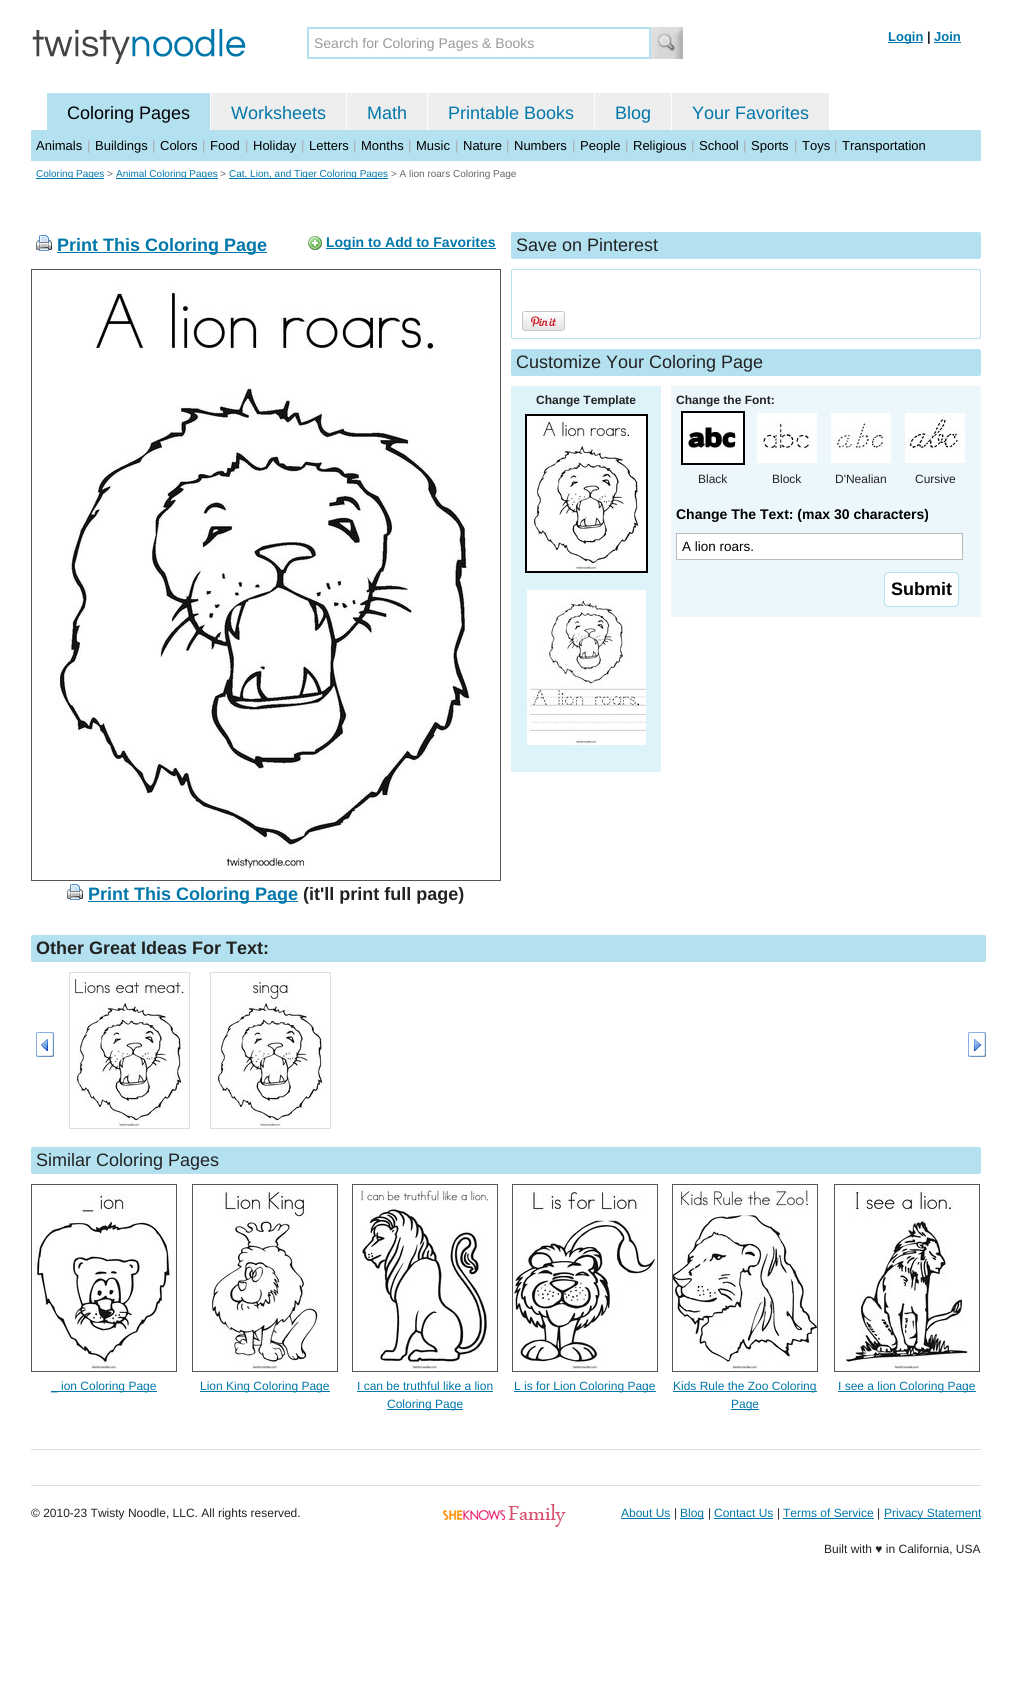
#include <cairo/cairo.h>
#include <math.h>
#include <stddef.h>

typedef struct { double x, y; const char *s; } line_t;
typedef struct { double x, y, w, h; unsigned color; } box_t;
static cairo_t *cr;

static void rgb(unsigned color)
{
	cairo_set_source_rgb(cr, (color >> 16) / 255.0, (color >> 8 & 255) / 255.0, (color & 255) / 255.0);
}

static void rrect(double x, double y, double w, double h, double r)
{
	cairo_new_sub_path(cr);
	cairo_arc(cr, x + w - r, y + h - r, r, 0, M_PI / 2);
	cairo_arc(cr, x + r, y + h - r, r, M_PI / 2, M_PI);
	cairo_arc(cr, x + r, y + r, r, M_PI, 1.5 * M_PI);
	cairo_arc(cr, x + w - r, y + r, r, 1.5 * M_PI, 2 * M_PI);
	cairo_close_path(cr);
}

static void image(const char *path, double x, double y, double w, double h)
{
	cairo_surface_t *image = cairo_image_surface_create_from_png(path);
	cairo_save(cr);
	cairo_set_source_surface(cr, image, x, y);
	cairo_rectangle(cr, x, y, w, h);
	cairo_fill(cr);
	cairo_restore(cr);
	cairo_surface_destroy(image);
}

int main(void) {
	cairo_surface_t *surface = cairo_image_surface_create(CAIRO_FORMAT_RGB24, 1012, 1708);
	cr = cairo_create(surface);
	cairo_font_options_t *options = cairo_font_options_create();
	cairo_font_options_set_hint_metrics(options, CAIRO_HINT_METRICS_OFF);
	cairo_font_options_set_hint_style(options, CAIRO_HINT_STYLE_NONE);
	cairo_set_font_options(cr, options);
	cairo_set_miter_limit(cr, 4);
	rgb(0xffffff);
	cairo_paint(cr);
	image("img/1.png", 32, 29, 214, 35);
	cairo_rectangle(cr, 308, 28, 342, 30);
	rgb(0xb3e1f0);
	cairo_stroke(cr);
	image("img/2.png", 651, 27, 32, 32);
	{
		static const box_t items[] = {
			{888, 42, 35, 1, 0x0077aa},
			{934, 42, 27, 1, 0x0077aa},
			{47, 93, 163, 37, 0xb3e1f0},
			{211, 93, 135, 37, 0xeeeeee},
			{347, 93, 80, 37, 0xeeeeee},
			{428, 93, 166, 37, 0xeeeeee},
			{595, 93, 76, 37, 0xeeeeee},
			{672, 93, 157, 37, 0xeeeeee},
			{31, 130, 950, 31, 0xb3e1f0},
			{36, 178, 68, 1, 0x0077aa},
			{116, 178, 102, 1, 0x0077aa},
			{229, 178, 159, 1, 0x0077aa},
		};
		for (size_t i = 0; i < sizeof items / sizeof *items; i++) {
			rgb(items[i].color);
			cairo_rectangle(cr, items[i].x, items[i].y, items[i].w, items[i].h);
			cairo_fill(cr);
		}
	}
	image("img/3.png", 36, 235, 16, 16);
	cairo_rectangle(cr, 57, 252, 210, 1);
	cairo_fill(cr);
	image("img/4.png", 308, 236, 14, 14);
	cairo_rectangle(cr, 326, 248, 170, 1);
	cairo_fill(cr);
	cairo_rectangle(cr, 31.5, 269.5, 469, 611);
	rgb(0x555555);
	cairo_set_line_width(cr, 1);
	cairo_stroke(cr);
	image("img/5.png", 56, 286, 416, 584);
	image("img/3.png", 67, 884, 16, 16);
	rgb(0x0077aa);
	cairo_rectangle(cr, 88, 901, 210, 1);
	cairo_fill(cr);
	rgb(0xb3e1f0);
	rrect(511, 232, 470, 27, 2);
	cairo_fill(cr);
	rrect(511.5, 269.5, 469, 69, 1.5);
	cairo_stroke(cr);
	image("img/6.png", 522, 311, 43, 20);
	rrect(511, 349, 470, 27, 2);
	cairo_fill(cr);
	rgb(0xddf2f9);
	cairo_rectangle(cr, 511, 386, 150, 386);
	cairo_fill(cr);
	cairo_rectangle(cr, 526, 415, 121, 157);
	rgb(0x000000);
	cairo_set_line_width(cr, 2);
	cairo_stroke(cr);
	image("img/7.png", 527, 416, 119, 155);
	image("img/8.png", 527, 590, 119, 155);
	rgb(0xecf7fb);
	cairo_rectangle(cr, 671, 386, 310, 231);
	cairo_fill(cr);
	cairo_rectangle(cr, 682, 412, 62, 52);
	rgb(0x000000);
	cairo_stroke(cr);
	image("img/9.png", 683, 413, 60, 50);
	image("img/10.png", 757, 413, 60, 50);
	image("img/11.png", 831, 413, 60, 50);
	image("img/12.png", 905, 413, 60, 50);
	rgb(0xffffff);
	cairo_rectangle(cr, 676.5, 533.5, 286, 26);
	cairo_fill_preserve(cr);
	rgb(0xbbbbbb);
	cairo_set_line_width(cr, 1);
	cairo_stroke(cr);
	rgb(0xffffff);
	rrect(884.5, 572.5, 74, 34, 4.5);
	cairo_fill_preserve(cr);
	rgb(0xb3e1f0);
	cairo_stroke(cr);
	rrect(31, 935, 955, 27, 2);
	cairo_fill(cr);
	image("img/13.png", 36, 1032, 18, 25);
	cairo_rectangle(cr, 69.5, 972.5, 120, 156);
	rgb(0xdddddd);
	cairo_stroke(cr);
	image("img/14.png", 70, 974, 119, 154);
	cairo_rectangle(cr, 210.5, 972.5, 120, 156);
	cairo_stroke(cr);
	image("img/15.png", 211, 981, 112, 147);
	image("img/16.png", 968, 1032, 18, 25);
	rgb(0xb3e1f0);
	rrect(31, 1147, 950, 27, 2);
	cairo_fill(cr);
	cairo_rectangle(cr, 31.5, 1184.5, 145, 187);
	rgb(0x555555);
	cairo_stroke(cr);
	image("img/17.png", 32, 1193, 144, 176);
	rgb(0x0077aa);
	cairo_rectangle(cr, 51, 1391, 106, 1);
	cairo_fill(cr);
	cairo_rectangle(cr, 192.5, 1184.5, 145, 187);
	rgb(0x555555);
	cairo_stroke(cr);
	image("img/18.png", 209, 1185, 111, 184);
	rgb(0x0077aa);
	cairo_rectangle(cr, 200, 1391, 130, 1);
	cairo_fill(cr);
	cairo_rectangle(cr, 352.5, 1184.5, 145, 187);
	rgb(0x555555);
	cairo_stroke(cr);
	image("img/19.png", 361, 1185, 128, 184);
	rgb(0x0077aa);
	cairo_rectangle(cr, 357, 1391, 136, 1);
	cairo_fill(cr);
	cairo_rectangle(cr, 387, 1409, 76, 1);
	cairo_fill(cr);
	cairo_rectangle(cr, 512.5, 1184.5, 145, 187);
	rgb(0x555555);
	cairo_stroke(cr);
	image("img/20.png", 513, 1185, 144, 184);
	rgb(0x0077aa);
	cairo_rectangle(cr, 514, 1391, 142, 1);
	cairo_fill(cr);
	cairo_rectangle(cr, 672.5, 1184.5, 145, 187);
	rgb(0x555555);
	cairo_stroke(cr);
	image("img/21.png", 673, 1185, 144, 184);
	rgb(0x0077aa);
	cairo_rectangle(cr, 673, 1391, 144, 1);
	cairo_fill(cr);
	cairo_rectangle(cr, 731, 1409, 28, 1);
	cairo_fill(cr);
	cairo_rectangle(cr, 834.5, 1184.5, 145, 187);
	rgb(0x555555);
	cairo_stroke(cr);
	image("img/22.png", 843, 1185, 127, 184);
	{
		static const box_t items[] = {
			{838, 1391, 138, 1, 0x0077aa},
			{31, 1449, 950, 1, 0xdddddd},
			{31, 1485, 950, 1, 0xdddddd},
		};
		for (size_t i = 0; i < sizeof items / sizeof *items; i++) {
			rgb(items[i].color);
			cairo_rectangle(cr, items[i].x, items[i].y, items[i].w, items[i].h);
			cairo_fill(cr);
		}
	}
	image("img/23.png", 442, 1504, 124, 23);
	{
		static const box_t items[] = {
			{621, 1518, 49, 1, 0x0077aa},
			{680, 1518, 24, 1, 0x0077aa},
			{714, 1518, 59, 1, 0x0077aa},
			{783, 1518, 91, 1, 0x0077aa},
			{884, 1518, 97, 1, 0x0077aa},
		};
		for (size_t i = 0; i < sizeof items / sizeof *items; i++) {
			rgb(items[i].color);
			cairo_rectangle(cr, items[i].x, items[i].y, items[i].w, items[i].h);
			cairo_fill(cr);
		}
	}
	cairo_select_font_face(cr, "Liberation Sans", CAIRO_FONT_SLANT_NORMAL, CAIRO_FONT_WEIGHT_NORMAL);
	cairo_set_font_size(cr, 14);
	rgb(0x999999);
	cairo_move_to(cr, 314, 48);
	cairo_show_text(cr, "Search for Coloring Pages & Books");
	cairo_select_font_face(cr, "Liberation Sans", CAIRO_FONT_SLANT_NORMAL, CAIRO_FONT_WEIGHT_BOLD);
	cairo_set_font_size(cr, 13);
	rgb(0x0077aa);
	cairo_move_to(cr, 888, 41);
	cairo_show_text(cr, "Login");
	rgb(0x222222);
	cairo_move_to(cr, 927, 41);
	cairo_show_text(cr, "|");
	rgb(0x0077aa);
	cairo_move_to(cr, 934, 41);
	cairo_show_text(cr, "Join");
	cairo_select_font_face(cr, "Liberation Sans", CAIRO_FONT_SLANT_NORMAL, CAIRO_FONT_WEIGHT_NORMAL);
	cairo_set_font_size(cr, 18);
	rgb(0x000000);
	cairo_move_to(cr, 67, 119);
	cairo_show_text(cr, "Coloring Pages");
	rgb(0x0077aa);
	{
		static const line_t items[] = {
			{231, 119, "Worksheets"},
			{367, 119, "Math"},
			{448, 119, "Printable Books"},
			{615, 119, "Blog"},
			{692, 119, "Your Favorites"},
		};
		for (size_t i = 0; i < sizeof items / sizeof *items; i++) {
			cairo_move_to(cr, items[i].x, items[i].y);
			cairo_show_text(cr, items[i].s);
		}
	}
	cairo_set_font_size(cr, 13);
	rgb(0x000000);
	cairo_move_to(cr, 36, 150);
	cairo_show_text(cr, "Animals");
	rgb(0xaaaaaa);
	cairo_move_to(cr, 87, 150);
	cairo_show_text(cr, "|");
	rgb(0x000000);
	cairo_move_to(cr, 95, 150);
	cairo_show_text(cr, "Buildings");
	rgb(0xaaaaaa);
	cairo_move_to(cr, 152, 150);
	cairo_show_text(cr, "|");
	rgb(0x000000);
	cairo_move_to(cr, 160, 150);
	cairo_show_text(cr, "Colors");
	rgb(0xaaaaaa);
	cairo_move_to(cr, 202, 150);
	cairo_show_text(cr, "|");
	rgb(0x000000);
	cairo_move_to(cr, 210, 150);
	cairo_show_text(cr, "Food");
	rgb(0xaaaaaa);
	cairo_move_to(cr, 245, 150);
	cairo_show_text(cr, "|");
	rgb(0x000000);
	cairo_move_to(cr, 253, 150);
	cairo_show_text(cr, "Holiday");
	rgb(0xaaaaaa);
	cairo_move_to(cr, 301, 150);
	cairo_show_text(cr, "|");
	rgb(0x000000);
	cairo_move_to(cr, 309, 150);
	cairo_show_text(cr, "Letters");
	rgb(0xaaaaaa);
	cairo_move_to(cr, 353, 150);
	cairo_show_text(cr, "|");
	rgb(0x000000);
	cairo_move_to(cr, 361, 150);
	cairo_show_text(cr, "Months");
	rgb(0xaaaaaa);
	cairo_move_to(cr, 408, 150);
	cairo_show_text(cr, "|");
	rgb(0x000000);
	cairo_move_to(cr, 416, 150);
	cairo_show_text(cr, "Music");
	rgb(0xaaaaaa);
	cairo_move_to(cr, 455, 150);
	cairo_show_text(cr, "|");
	rgb(0x000000);
	cairo_move_to(cr, 463, 150);
	cairo_show_text(cr, "Nature");
	rgb(0xaaaaaa);
	cairo_move_to(cr, 506, 150);
	cairo_show_text(cr, "|");
	rgb(0x000000);
	cairo_move_to(cr, 514, 150);
	cairo_show_text(cr, "Numbers");
	rgb(0xaaaaaa);
	cairo_move_to(cr, 572, 150);
	cairo_show_text(cr, "|");
	rgb(0x000000);
	cairo_move_to(cr, 580, 150);
	cairo_show_text(cr, "People");
	rgb(0xaaaaaa);
	cairo_move_to(cr, 625, 150);
	cairo_show_text(cr, "|");
	rgb(0x000000);
	cairo_move_to(cr, 633, 150);
	cairo_show_text(cr, "Religious");
	rgb(0xaaaaaa);
	cairo_move_to(cr, 691, 150);
	cairo_show_text(cr, "|");
	rgb(0x000000);
	cairo_move_to(cr, 699, 150);
	cairo_show_text(cr, "School");
	rgb(0xaaaaaa);
	cairo_move_to(cr, 743, 150);
	cairo_show_text(cr, "|");
	rgb(0x000000);
	cairo_move_to(cr, 751, 150);
	cairo_show_text(cr, "Sports");
	rgb(0xaaaaaa);
	cairo_move_to(cr, 794, 150);
	cairo_show_text(cr, "|");
	rgb(0x000000);
	cairo_move_to(cr, 802, 150);
	cairo_show_text(cr, "Toys");
	rgb(0xaaaaaa);
	cairo_move_to(cr, 834, 150);
	cairo_show_text(cr, "|");
	rgb(0x000000);
	cairo_move_to(cr, 842, 150);
	cairo_show_text(cr, "Transportation");
	cairo_set_font_size(cr, 10);
	rgb(0x0077aa);
	cairo_move_to(cr, 36, 177);
	cairo_show_text(cr, "Coloring Pages");
	rgb(0x666666);
	cairo_move_to(cr, 107, 177);
	cairo_show_text(cr, ">");
	rgb(0x0077aa);
	cairo_move_to(cr, 116, 177);
	cairo_show_text(cr, "Animal Coloring Pages");
	rgb(0x666666);
	cairo_move_to(cr, 220, 177);
	cairo_show_text(cr, ">");
	rgb(0x0077aa);
	cairo_move_to(cr, 229, 177);
	cairo_show_text(cr, "Cat, Lion, and Tiger Coloring Pages");
	rgb(0x666666);
	cairo_move_to(cr, 391, 177);
	cairo_show_text(cr, "> A lion roars Coloring Page");
	cairo_select_font_face(cr, "Liberation Sans", CAIRO_FONT_SLANT_NORMAL, CAIRO_FONT_WEIGHT_BOLD);
	cairo_set_font_size(cr, 18);
	rgb(0x0077aa);
	cairo_move_to(cr, 57, 251);
	cairo_show_text(cr, "Print This Coloring Page");
	cairo_set_font_size(cr, 14);
	cairo_move_to(cr, 326, 247);
	cairo_show_text(cr, "Login to Add to Favorites");
	cairo_set_font_size(cr, 18);
	cairo_move_to(cr, 88, 900);
	cairo_show_text(cr, "Print This Coloring Page");
	rgb(0x222222);
	cairo_move_to(cr, 303, 900);
	cairo_show_text(cr, "(it'll print full page)");
	cairo_select_font_face(cr, "Liberation Sans", CAIRO_FONT_SLANT_NORMAL, CAIRO_FONT_WEIGHT_NORMAL);
	cairo_move_to(cr, 516, 251);
	cairo_show_text(cr, "Save on Pinterest");
	cairo_move_to(cr, 516, 368);
	cairo_show_text(cr, "Customize Your Coloring Page");
	cairo_select_font_face(cr, "Liberation Sans", CAIRO_FONT_SLANT_NORMAL, CAIRO_FONT_WEIGHT_BOLD);
	cairo_set_font_size(cr, 12);
	cairo_move_to(cr, 536, 404);
	cairo_show_text(cr, "Change Template");
	cairo_move_to(cr, 676, 404);
	cairo_show_text(cr, "Change the Font:");
	cairo_select_font_face(cr, "Liberation Sans", CAIRO_FONT_SLANT_NORMAL, CAIRO_FONT_WEIGHT_NORMAL);
	{
		static const line_t items[] = {
			{698, 483, "Black"},
			{772, 483, "Block"},
			{835, 483, "D'Nealian"},
			{915, 483, "Cursive"},
		};
		for (size_t i = 0; i < sizeof items / sizeof *items; i++) {
			cairo_move_to(cr, items[i].x, items[i].y);
			cairo_show_text(cr, items[i].s);
		}
	}
	cairo_select_font_face(cr, "Liberation Sans", CAIRO_FONT_SLANT_NORMAL, CAIRO_FONT_WEIGHT_BOLD);
	cairo_set_font_size(cr, 14);
	rgb(0x000000);
	cairo_move_to(cr, 676, 519);
	cairo_show_text(cr, "Change The Text: (max 30 characters)");
	cairo_select_font_face(cr, "Liberation Sans", CAIRO_FONT_SLANT_NORMAL, CAIRO_FONT_WEIGHT_NORMAL);
	cairo_set_font_size(cr, 13.5);
	cairo_move_to(cr, 682, 551);
	cairo_show_text(cr, "A lion roars.");
	cairo_select_font_face(cr, "Liberation Sans", CAIRO_FONT_SLANT_NORMAL, CAIRO_FONT_WEIGHT_BOLD);
	cairo_set_font_size(cr, 18);
	cairo_move_to(cr, 891, 595);
	cairo_show_text(cr, "Submit");
	rgb(0x222222);
	cairo_move_to(cr, 36, 954);
	cairo_show_text(cr, "Other Great Ideas For Text:");
	cairo_select_font_face(cr, "Liberation Sans", CAIRO_FONT_SLANT_NORMAL, CAIRO_FONT_WEIGHT_NORMAL);
	cairo_move_to(cr, 36, 1166);
	cairo_show_text(cr, "Similar Coloring Pages");
	cairo_set_font_size(cr, 12);
	rgb(0x0077aa);
	{
		static const line_t items[] = {
			{51, 1390, "_ ion Coloring Page"},
			{200, 1390, "Lion King Coloring Page"},
			{357, 1390, "I can be truthful like a lion"},
			{387, 1408, "Coloring Page"},
			{514, 1390, "L is for Lion Coloring Page"},
			{673, 1390, "Kids Rule the Zoo Coloring"},
			{731, 1408, "Page"},
			{838, 1390, "I see a lion Coloring Page"},
		};
		for (size_t i = 0; i < sizeof items / sizeof *items; i++) {
			cairo_move_to(cr, items[i].x, items[i].y);
			cairo_show_text(cr, items[i].s);
		}
	}
	rgb(0x222222);
	cairo_move_to(cr, 31, 1517);
	cairo_show_text(cr, "© 2010-23 Twisty Noodle, LLC. All rights reserved.");
	rgb(0x0077aa);
	cairo_move_to(cr, 621, 1517);
	cairo_show_text(cr, "About Us");
	rgb(0x222222);
	cairo_move_to(cr, 674, 1517);
	cairo_show_text(cr, "|");
	rgb(0x0077aa);
	cairo_move_to(cr, 680, 1517);
	cairo_show_text(cr, "Blog");
	rgb(0x222222);
	cairo_move_to(cr, 708, 1517);
	cairo_show_text(cr, "|");
	rgb(0x0077aa);
	cairo_move_to(cr, 714, 1517);
	cairo_show_text(cr, "Contact Us");
	rgb(0x222222);
	cairo_move_to(cr, 777, 1517);
	cairo_show_text(cr, "|");
	rgb(0x0077aa);
	cairo_move_to(cr, 783, 1517);
	cairo_show_text(cr, "Terms of Service");
	rgb(0x222222);
	cairo_move_to(cr, 877, 1517);
	cairo_show_text(cr, "|");
	rgb(0x0077aa);
	cairo_move_to(cr, 884, 1517);
	cairo_show_text(cr, "Privacy Statement");
	rgb(0x222222);
	cairo_move_to(cr, 824, 1553);
	cairo_show_text(cr, "Built with ♥ in California, USA");
	cairo_surface_write_to_png(surface, "page.png");
	cairo_font_options_destroy(options);
	cairo_destroy(cr);
	cairo_surface_destroy(surface);
	return 0;
}
